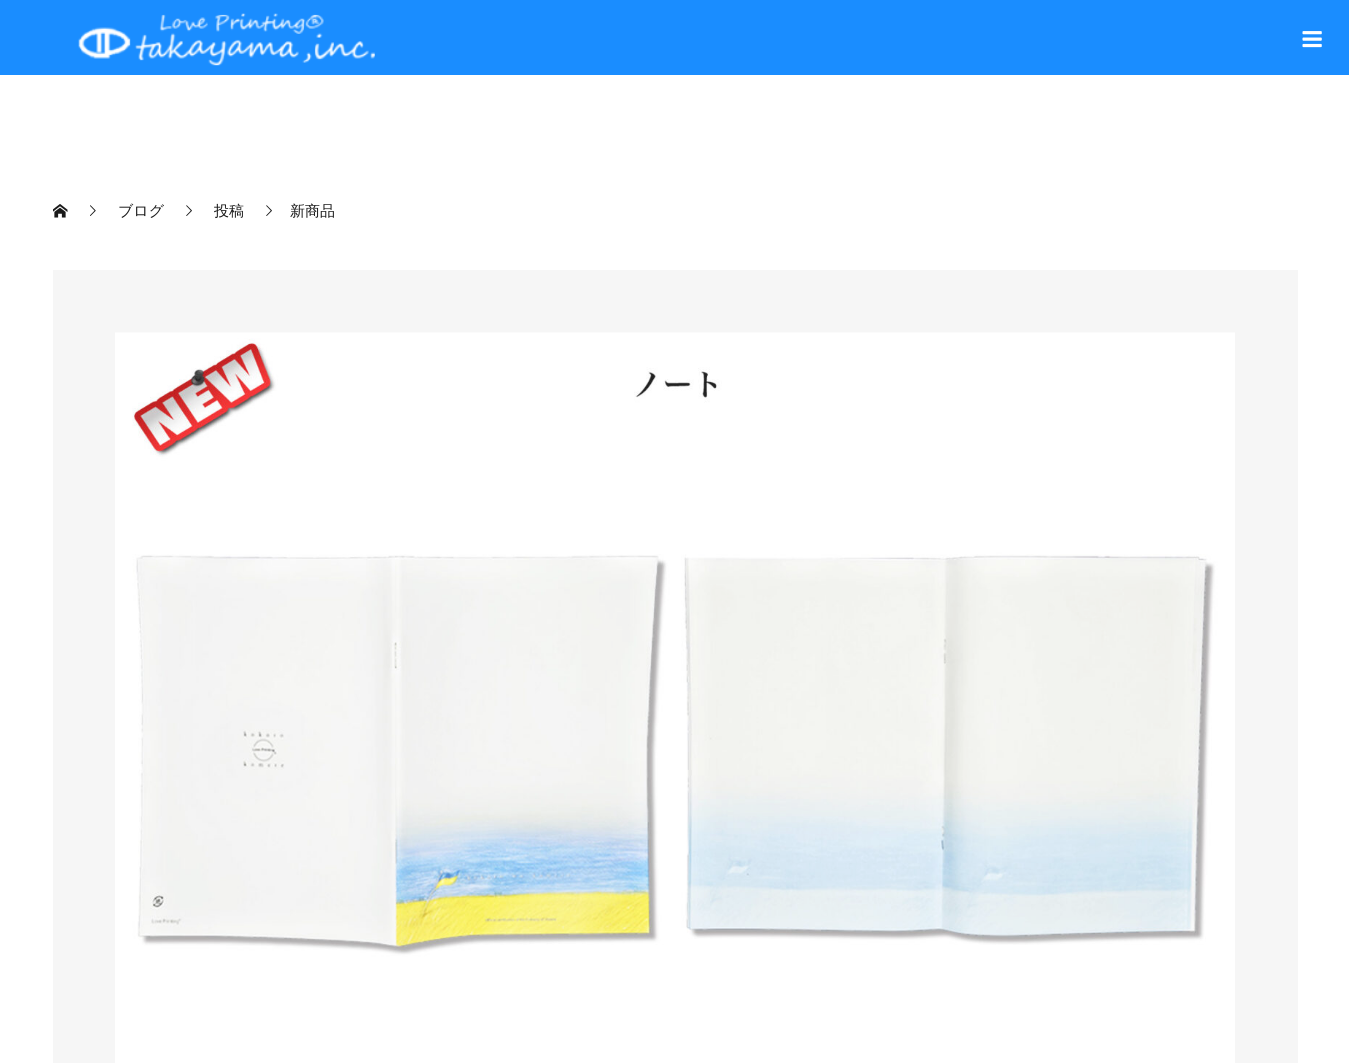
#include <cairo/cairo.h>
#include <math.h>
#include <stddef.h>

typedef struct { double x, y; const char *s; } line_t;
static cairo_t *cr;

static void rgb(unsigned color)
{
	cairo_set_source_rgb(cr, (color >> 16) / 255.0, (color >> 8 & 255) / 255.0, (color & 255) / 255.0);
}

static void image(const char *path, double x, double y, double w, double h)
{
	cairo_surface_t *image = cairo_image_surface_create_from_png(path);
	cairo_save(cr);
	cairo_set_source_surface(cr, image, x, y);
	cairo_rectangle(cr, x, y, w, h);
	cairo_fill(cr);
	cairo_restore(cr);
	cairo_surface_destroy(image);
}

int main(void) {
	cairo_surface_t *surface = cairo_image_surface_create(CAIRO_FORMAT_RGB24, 1349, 1063);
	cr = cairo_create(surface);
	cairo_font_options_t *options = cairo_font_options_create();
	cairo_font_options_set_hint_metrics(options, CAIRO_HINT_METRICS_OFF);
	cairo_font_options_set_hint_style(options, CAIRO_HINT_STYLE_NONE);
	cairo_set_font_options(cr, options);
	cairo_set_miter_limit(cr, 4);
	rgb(0xffffff);
	cairo_paint(cr);
	rgb(0x1a8dff);
	cairo_rectangle(cr, 0, 0, 1349, 75);
	cairo_fill(cr);
	image("img/1.png", 78, 13, 297, 53);
	image("img/2.png", 1302, 31, 20, 17);
	image("img/3.png", 53, 204, 15, 14);
	image("img/4.png", 90, 205, 6, 11);
	image("img/5.png", 186, 205, 6, 11);
	image("img/5.png", 266, 205, 6, 11);
	rgb(0xf6f6f6);
	cairo_rectangle(cr, 53, 270, 1245, 793);
	cairo_fill(cr);
	image("img/6.png", 115, 332, 1120, 731);
	cairo_select_font_face(cr, "WenQuanYi Zen Hei Medium", CAIRO_FONT_SLANT_NORMAL, CAIRO_FONT_WEIGHT_NORMAL);
	cairo_set_font_size(cr, 15);
	rgb(0x1a1a1a);
	{
		static const line_t items[] = {
			{118, 216, "ブログ"},
			{214, 216, "投稿"},
			{290, 216, "新商品"},
		};
		for (size_t i = 0; i < sizeof items / sizeof *items; i++) {
			cairo_move_to(cr, items[i].x, items[i].y);
			cairo_show_text(cr, items[i].s);
		}
	}
	cairo_surface_write_to_png(surface, "page.png");
	cairo_font_options_destroy(options);
	cairo_destroy(cr);
	cairo_surface_destroy(surface);
	return 0;
}
